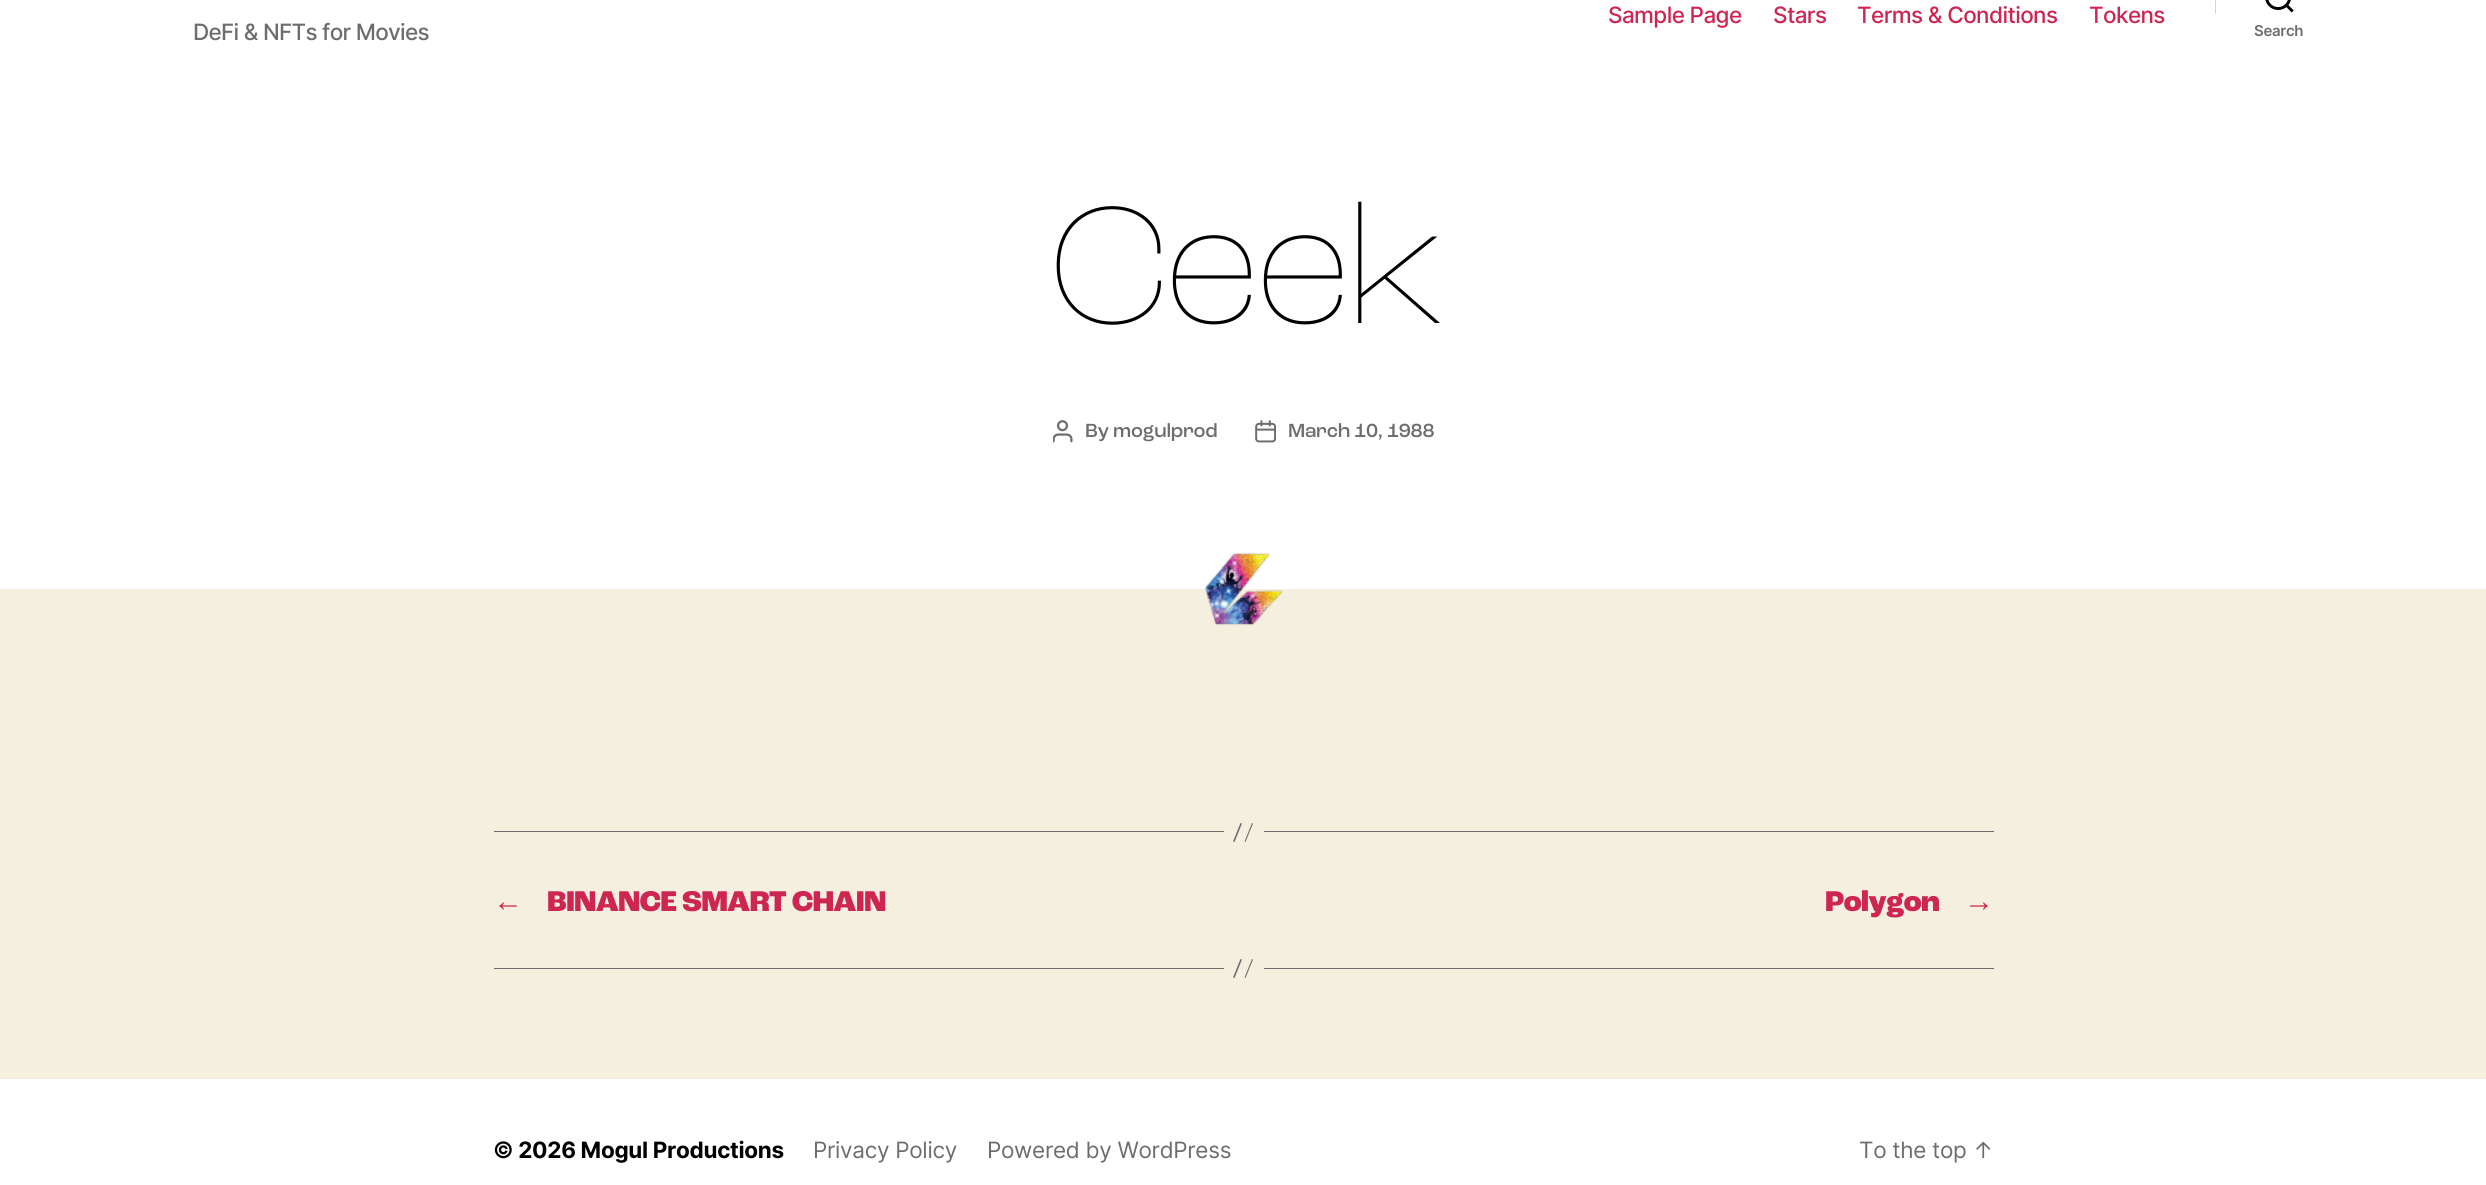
#include <cairo/cairo.h>
#include <math.h>
#include <stddef.h>

typedef struct { double x, y; const char *s; } line_t;
static cairo_t *cr;

static void rgb(unsigned color)
{
	cairo_set_source_rgb(cr, (color >> 16) / 255.0, (color >> 8 & 255) / 255.0, (color & 255) / 255.0);
}

static void tracked(double x, double y, const char *s, double letter, double word)
{
	cairo_move_to(cr, x, y);
	while (*s) {
		char ch[5] = {0};
		int n = 0;
		do ch[n++] = *s++; while ((*s & 0xC0) == 0x80);
		cairo_show_text(cr, ch);
		cairo_rel_move_to(cr, letter + word * (*ch == ' '), 0);
	}
}

static void image(const char *path, double x, double y, double w, double h)
{
	cairo_surface_t *image = cairo_image_surface_create_from_png(path);
	cairo_save(cr);
	cairo_set_source_surface(cr, image, x, y);
	cairo_rectangle(cr, x, y, w, h);
	cairo_fill(cr);
	cairo_restore(cr);
	cairo_surface_destroy(image);
}

int main(void) {
	cairo_surface_t *surface = cairo_image_surface_create(CAIRO_FORMAT_RGB24, 2486, 1185);
	cr = cairo_create(surface);
	cairo_font_options_t *options = cairo_font_options_create();
	cairo_font_options_set_hint_metrics(options, CAIRO_HINT_METRICS_OFF);
	cairo_font_options_set_hint_style(options, CAIRO_HINT_STYLE_NONE);
	cairo_set_font_options(cr, options);
	cairo_set_miter_limit(cr, 4);
	rgb(0xf5efe0);
	cairo_paint(cr);
	rgb(0xffffff);
	cairo_rectangle(cr, 0, 0, 2486, 589);
	cairo_fill(cr);
	rgb(0xdcd7ca);
	cairo_rectangle(cr, 2215, 0, 1, 14);
	cairo_fill(cr);
	image("img/1.png", 2265, 0, 29, 13);
	image("img/2.png", 1053, 420, 20, 23);
	image("img/3.png", 1255, 420, 21, 23);
	image("img/4.png", 1204, 552, 79, 74);
	rgb(0x6d6d6d);
	cairo_rectangle(cr, 1264, 831, 730, 1);
	cairo_fill(cr);
	cairo_rectangle(cr, 494, 831, 730, 1);
	cairo_fill(cr);
	cairo_new_path(cr);
	cairo_move_to(cr, 1240.5, 823);
	cairo_line_to(cr, 1242, 823.5);
	cairo_line_to(cr, 1234.5, 842);
	cairo_line_to(cr, 1233, 841.5);
	cairo_close_path(cr);
	cairo_move_to(cr, 1252, 823);
	cairo_line_to(cr, 1253, 823.5);
	cairo_line_to(cr, 1245.5, 842);
	cairo_line_to(cr, 1244.5, 841.5);
	cairo_close_path(cr);
	cairo_fill(cr);
	cairo_rectangle(cr, 1264, 968, 730, 1);
	cairo_fill(cr);
	cairo_rectangle(cr, 494, 968, 730, 1);
	cairo_fill(cr);
	cairo_new_path(cr);
	cairo_move_to(cr, 1240.5, 959);
	cairo_line_to(cr, 1242, 959.5);
	cairo_line_to(cr, 1234.5, 978);
	cairo_line_to(cr, 1233, 977.5);
	cairo_close_path(cr);
	cairo_move_to(cr, 1252, 959);
	cairo_line_to(cr, 1253, 959.5);
	cairo_line_to(cr, 1245.5, 978);
	cairo_line_to(cr, 1244.5, 977.5);
	cairo_close_path(cr);
	cairo_fill(cr);
	rgb(0xffffff);
	cairo_rectangle(cr, 0, 1079, 2486, 106);
	cairo_fill(cr);
	cairo_select_font_face(cr, "Inter Medium", CAIRO_FONT_SLANT_NORMAL, CAIRO_FONT_WEIGHT_NORMAL);
	cairo_set_font_size(cr, 22.5);
	rgb(0x6d6d6d);
	tracked(193, 40, "DeFi & NFTs for Movies", -0.7, 0);
	rgb(0xcd2653);
	{
		static const line_t items[] = {
			{1608, 23, "Sample Page"},
			{1773, 23, "Stars"},
			{1857, 23, "Terms & Conditions"},
			{2089, 23, "Tokens"},
		};
		for (size_t i = 0; i < sizeof items / sizeof *items; i++) {
			tracked(items[i].x, items[i].y, items[i].s, -0.6, 0);
		}
	}
	cairo_select_font_face(cr, "Inter SemiBold", CAIRO_FONT_SLANT_NORMAL, CAIRO_FONT_WEIGHT_NORMAL);
	cairo_set_font_size(cr, 15);
	rgb(0x6d6d6d);
	tracked(2254, 36, "Search", -0.3, 0);
	cairo_select_font_face(cr, "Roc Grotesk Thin", CAIRO_FONT_SLANT_NORMAL, CAIRO_FONT_WEIGHT_NORMAL);
	cairo_set_font_size(cr, 175);
	rgb(0x000000);
	tracked(1046, 323, "Ceek", -7.5, 0);
	cairo_select_font_face(cr, "Roc Grotesk Medium", CAIRO_FONT_SLANT_NORMAL, CAIRO_FONT_WEIGHT_NORMAL);
	cairo_set_font_size(cr, 20);
	rgb(0x6d6d6d);
	tracked(1085, 437, "By mogulprod", -0.3, 0);
	tracked(1288, 437, "March 10, 1988", -0.3, 0);
	cairo_select_font_face(cr, "Liberation Sans", CAIRO_FONT_SLANT_NORMAL, CAIRO_FONT_WEIGHT_BOLD);
	cairo_set_font_size(cr, 30);
	rgb(0xcd2653);
	tracked(493, 911, "←", -0.8, 0);
	cairo_select_font_face(cr, "Roc Grotesk ExtraBold", CAIRO_FONT_SLANT_NORMAL, CAIRO_FONT_WEIGHT_NORMAL);
	tracked(547, 911, "BINANCE SMART CHAIN", -0.8, 0);
	tracked(1825, 911, "Polygon", -0.8, 0);
	cairo_select_font_face(cr, "Liberation Sans", CAIRO_FONT_SLANT_NORMAL, CAIRO_FONT_WEIGHT_BOLD);
	tracked(1964, 911, "→", -0.8, 0);
	cairo_select_font_face(cr, "Inter", CAIRO_FONT_SLANT_NORMAL, CAIRO_FONT_WEIGHT_BOLD);
	cairo_set_font_size(cr, 22.5);
	rgb(0x000000);
	tracked(493, 1158, "© 2026 Mogul Productions", -0.3, 0);
	cairo_select_font_face(cr, "Inter", CAIRO_FONT_SLANT_NORMAL, CAIRO_FONT_WEIGHT_NORMAL);
	rgb(0x6d6d6d);
	{
		static const line_t items[] = {
			{813, 1158, "Privacy Policy"},
			{987, 1158, "Powered by WordPress"},
			{1859, 1158, "To the top ↑"},
		};
		for (size_t i = 0; i < sizeof items / sizeof *items; i++) {
			tracked(items[i].x, items[i].y, items[i].s, -0.3, 0);
		}
	}
	cairo_surface_write_to_png(surface, "page.png");
	cairo_font_options_destroy(options);
	cairo_destroy(cr);
	cairo_surface_destroy(surface);
	return 0;
}
